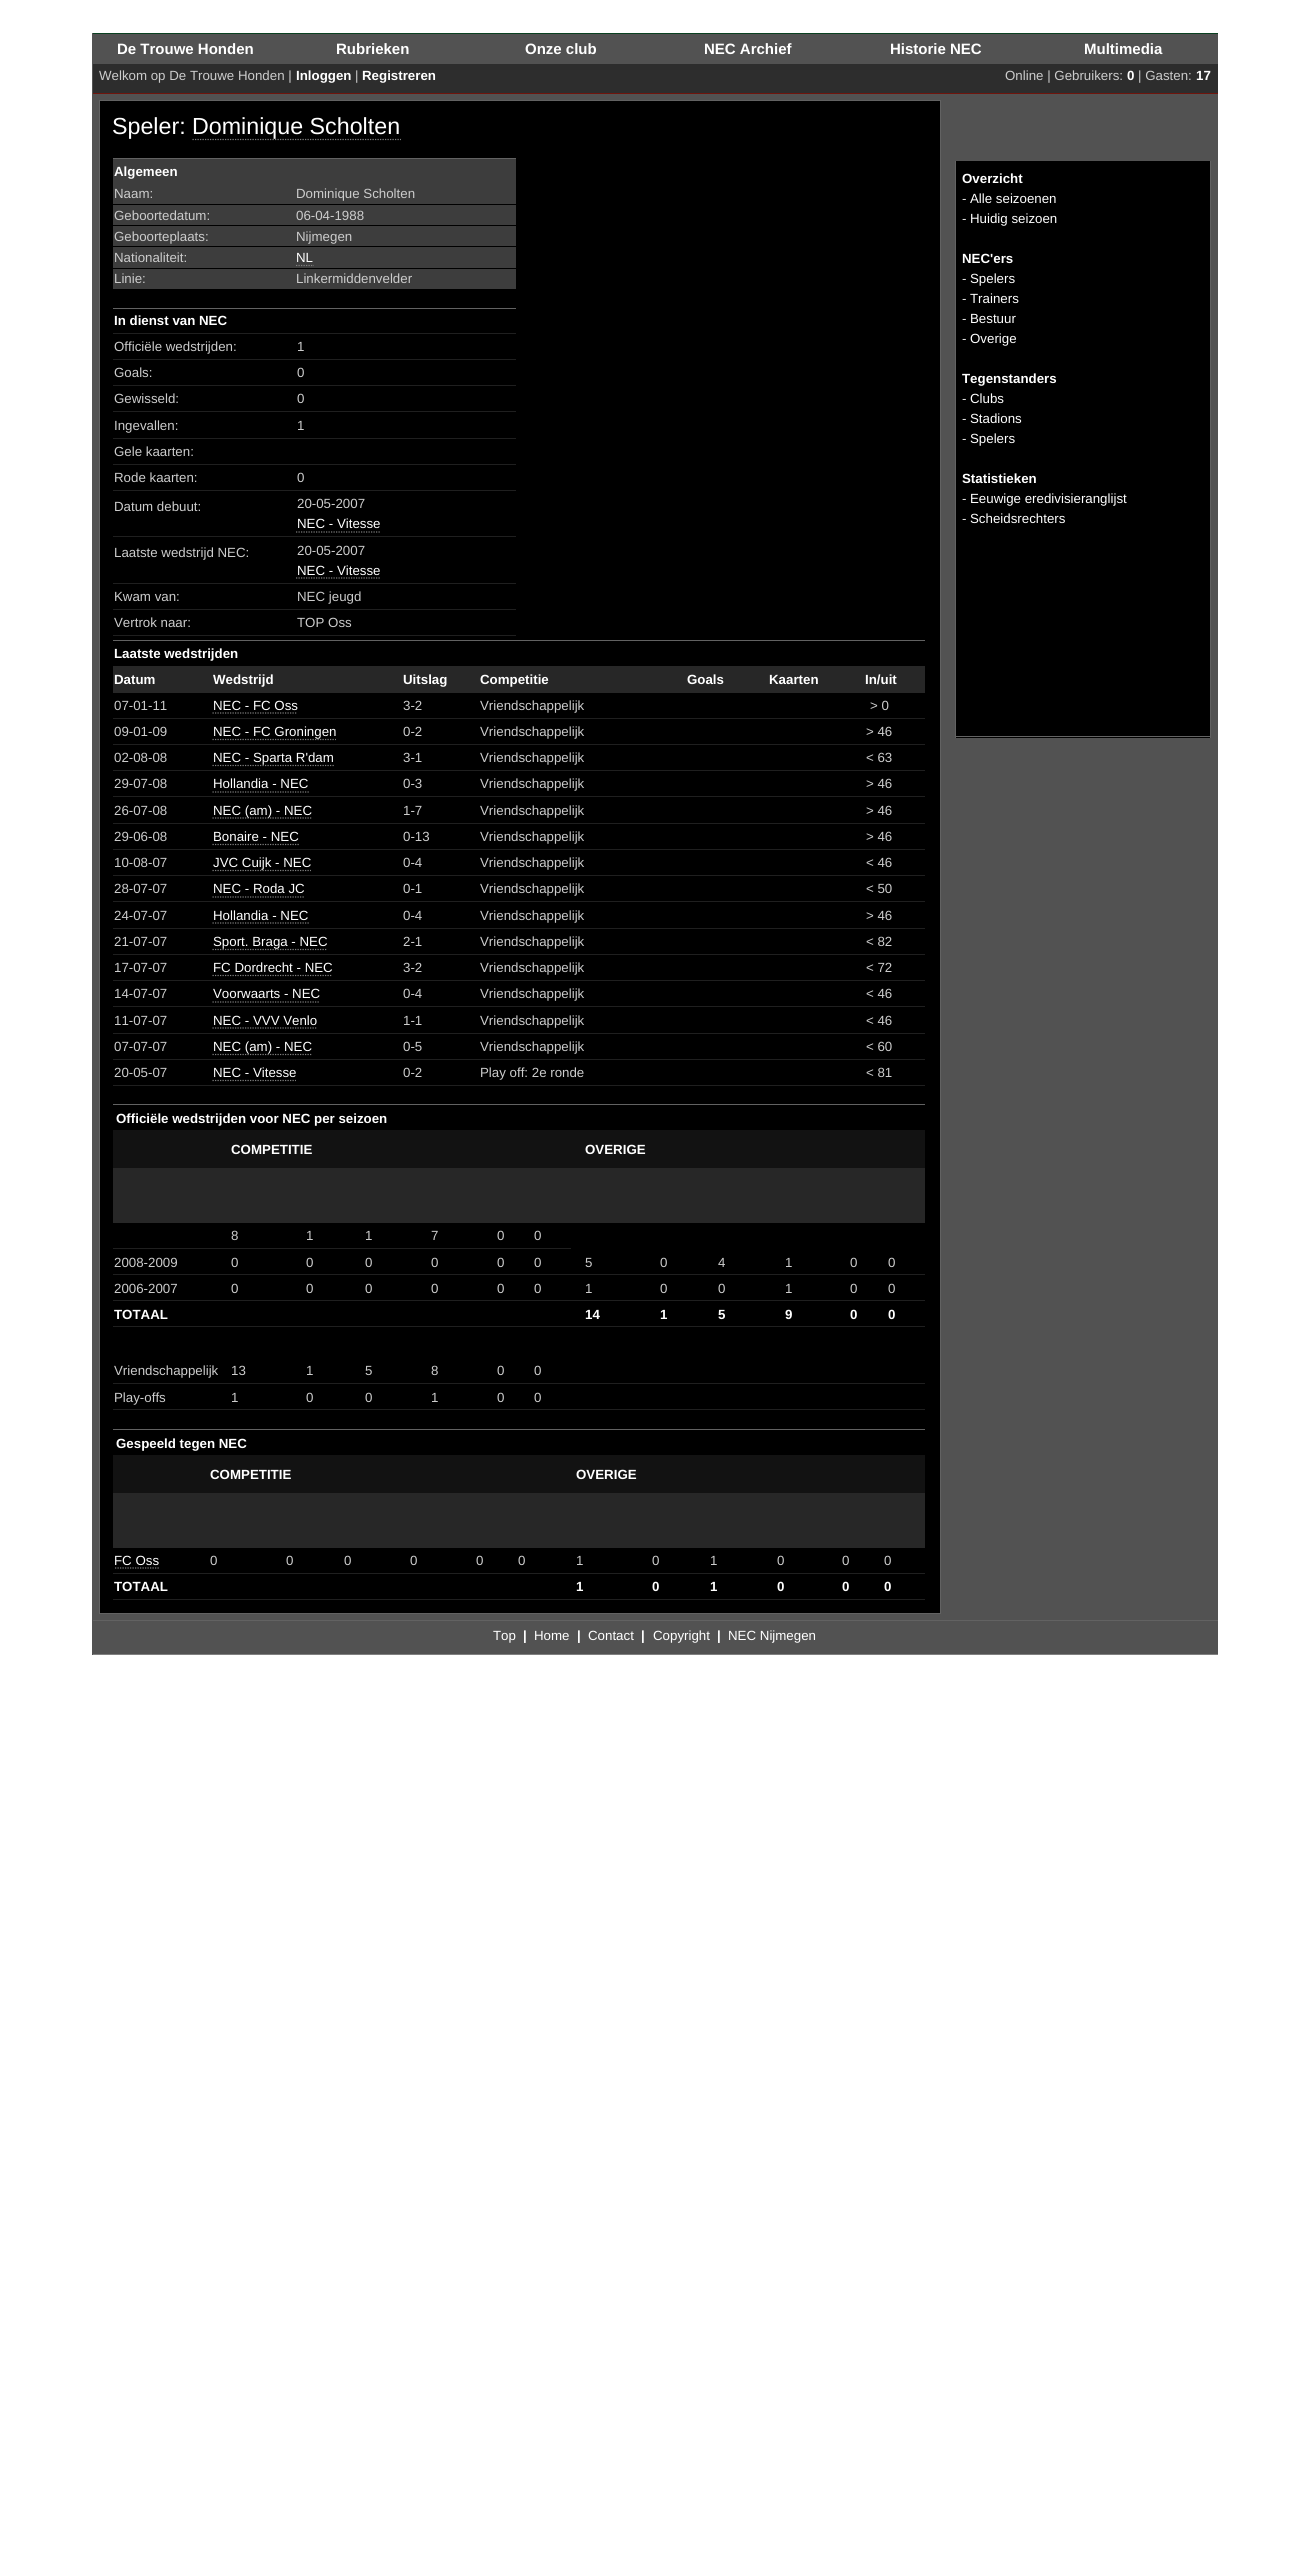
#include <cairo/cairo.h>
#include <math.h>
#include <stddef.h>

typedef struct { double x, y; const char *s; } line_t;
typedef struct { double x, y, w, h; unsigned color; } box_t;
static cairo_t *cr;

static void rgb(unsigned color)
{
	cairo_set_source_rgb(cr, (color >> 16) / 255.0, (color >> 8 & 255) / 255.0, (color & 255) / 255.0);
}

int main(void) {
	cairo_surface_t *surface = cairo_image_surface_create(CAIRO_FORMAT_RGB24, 1308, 2570);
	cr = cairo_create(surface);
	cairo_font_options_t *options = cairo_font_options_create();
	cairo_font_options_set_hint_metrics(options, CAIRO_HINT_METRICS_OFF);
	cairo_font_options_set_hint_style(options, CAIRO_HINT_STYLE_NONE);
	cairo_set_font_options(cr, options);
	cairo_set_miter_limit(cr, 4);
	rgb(0xffffff);
	cairo_paint(cr);
	{
		static const box_t items[] = {
			{92, 33, 1126, 1622, 0x525252},
			{93, 33, 1125, 1, 0x0a4121},
			{93, 64, 1125, 29, 0x2d2d2d},
			{93, 93, 1125, 1, 0x6f150d},
		};
		for (size_t i = 0; i < sizeof items / sizeof *items; i++) {
			rgb(items[i].color);
			cairo_rectangle(cr, items[i].x, items[i].y, items[i].w, items[i].h);
			cairo_fill(cr);
		}
	}
	rgb(0x000000);
	cairo_rectangle(cr, 99.5, 100.5, 841, 1513);
	cairo_fill_preserve(cr);
	rgb(0x626262);
	cairo_set_line_width(cr, 1);
	cairo_stroke(cr);
	cairo_new_path(cr);
	cairo_move_to(cr, 192.5, 139.5);
	cairo_line_to(cr, 401, 139.5);
	rgb(0x808080);
	cairo_set_line_width(cr, 1.2);
	cairo_set_dash(cr, (double[]){1.25, 1.25}, 2, 0);
	cairo_stroke(cr);
	{
		static const box_t items[] = {
			{113, 159, 403, 130, 0x3d3d3d},
			{113, 158, 403, 1, 0x626262},
			{113, 204, 403, 1, 0x000000},
			{113, 225, 403, 1, 0x000000},
			{113, 246, 403, 1, 0x000000},
			{113, 268, 403, 1, 0x000000},
		};
		for (size_t i = 0; i < sizeof items / sizeof *items; i++) {
			rgb(items[i].color);
			cairo_rectangle(cr, items[i].x, items[i].y, items[i].w, items[i].h);
			cairo_fill(cr);
		}
	}
	cairo_new_path(cr);
	cairo_move_to(cr, 296, 265.5);
	cairo_line_to(cr, 314, 265.5);
	rgb(0x808080);
	cairo_stroke(cr);
	{
		static const box_t items[] = {
			{113, 308, 403, 1, 0x626262},
			{113, 333, 403, 1, 0x1f1f1f},
			{113, 359, 403, 1, 0x1f1f1f},
			{113, 385, 403, 1, 0x1f1f1f},
			{113, 411, 403, 1, 0x1f1f1f},
			{113, 438, 403, 1, 0x1f1f1f},
			{113, 464, 403, 1, 0x1f1f1f},
			{113, 490, 403, 1, 0x1f1f1f},
			{113, 536, 403, 1, 0x1f1f1f},
		};
		for (size_t i = 0; i < sizeof items / sizeof *items; i++) {
			rgb(items[i].color);
			cairo_rectangle(cr, items[i].x, items[i].y, items[i].w, items[i].h);
			cairo_fill(cr);
		}
	}
	cairo_new_path(cr);
	cairo_move_to(cr, 296, 532);
	cairo_line_to(cr, 380, 532);
	rgb(0x808080);
	cairo_stroke(cr);
	rgb(0x1f1f1f);
	cairo_rectangle(cr, 113, 583, 403, 1);
	cairo_fill(cr);
	cairo_new_path(cr);
	cairo_move_to(cr, 296, 578);
	cairo_line_to(cr, 380, 578);
	rgb(0x808080);
	cairo_stroke(cr);
	{
		static const box_t items[] = {
			{113, 609, 403, 1, 0x1f1f1f},
			{113, 635, 403, 1, 0x1f1f1f},
			{113, 640, 812, 1, 0x626262},
			{113, 666, 812, 27, 0x272727},
			{113, 718, 812, 1, 0x1f1f1f},
		};
		for (size_t i = 0; i < sizeof items / sizeof *items; i++) {
			rgb(items[i].color);
			cairo_rectangle(cr, items[i].x, items[i].y, items[i].w, items[i].h);
			cairo_fill(cr);
		}
	}
	cairo_new_path(cr);
	cairo_move_to(cr, 212.5, 713);
	cairo_line_to(cr, 297.5, 713);
	rgb(0x808080);
	cairo_stroke(cr);
	rgb(0x1f1f1f);
	cairo_rectangle(cr, 113, 744, 812, 1);
	cairo_fill(cr);
	cairo_new_path(cr);
	cairo_move_to(cr, 212.5, 739.5);
	cairo_line_to(cr, 336, 739.5);
	rgb(0x808080);
	cairo_stroke(cr);
	rgb(0x1f1f1f);
	cairo_rectangle(cr, 113, 770, 812, 1);
	cairo_fill(cr);
	cairo_new_path(cr);
	cairo_move_to(cr, 212.5, 765.5);
	cairo_line_to(cr, 334, 765.5);
	rgb(0x808080);
	cairo_stroke(cr);
	rgb(0x1f1f1f);
	cairo_rectangle(cr, 113, 796, 812, 1);
	cairo_fill(cr);
	cairo_new_path(cr);
	cairo_move_to(cr, 212.5, 792);
	cairo_line_to(cr, 309, 792);
	rgb(0x808080);
	cairo_stroke(cr);
	rgb(0x1f1f1f);
	cairo_rectangle(cr, 113, 823, 812, 1);
	cairo_fill(cr);
	cairo_new_path(cr);
	cairo_move_to(cr, 212.5, 818);
	cairo_line_to(cr, 312.5, 818);
	rgb(0x808080);
	cairo_stroke(cr);
	rgb(0x1f1f1f);
	cairo_rectangle(cr, 113, 849, 812, 1);
	cairo_fill(cr);
	cairo_new_path(cr);
	cairo_move_to(cr, 212.5, 844.5);
	cairo_line_to(cr, 299, 844.5);
	rgb(0x808080);
	cairo_stroke(cr);
	rgb(0x1f1f1f);
	cairo_rectangle(cr, 113, 875, 812, 1);
	cairo_fill(cr);
	cairo_new_path(cr);
	cairo_move_to(cr, 212.5, 870.5);
	cairo_line_to(cr, 311, 870.5);
	rgb(0x808080);
	cairo_stroke(cr);
	rgb(0x1f1f1f);
	cairo_rectangle(cr, 113, 901, 812, 1);
	cairo_fill(cr);
	cairo_new_path(cr);
	cairo_move_to(cr, 212.5, 897);
	cairo_line_to(cr, 305, 897);
	rgb(0x808080);
	cairo_stroke(cr);
	rgb(0x1f1f1f);
	cairo_rectangle(cr, 113, 928, 812, 1);
	cairo_fill(cr);
	cairo_new_path(cr);
	cairo_move_to(cr, 212.5, 923);
	cairo_line_to(cr, 309, 923);
	rgb(0x808080);
	cairo_stroke(cr);
	rgb(0x1f1f1f);
	cairo_rectangle(cr, 113, 954, 812, 1);
	cairo_fill(cr);
	cairo_new_path(cr);
	cairo_move_to(cr, 212.5, 949.5);
	cairo_line_to(cr, 327.5, 949.5);
	rgb(0x808080);
	cairo_stroke(cr);
	rgb(0x1f1f1f);
	cairo_rectangle(cr, 113, 980, 812, 1);
	cairo_fill(cr);
	cairo_new_path(cr);
	cairo_move_to(cr, 212.5, 975.5);
	cairo_line_to(cr, 332.5, 975.5);
	rgb(0x808080);
	cairo_stroke(cr);
	rgb(0x1f1f1f);
	cairo_rectangle(cr, 113, 1006, 812, 1);
	cairo_fill(cr);
	cairo_new_path(cr);
	cairo_move_to(cr, 212.5, 1002);
	cairo_line_to(cr, 320, 1002);
	rgb(0x808080);
	cairo_stroke(cr);
	rgb(0x1f1f1f);
	cairo_rectangle(cr, 113, 1033, 812, 1);
	cairo_fill(cr);
	cairo_new_path(cr);
	cairo_move_to(cr, 212.5, 1028);
	cairo_line_to(cr, 317.5, 1028);
	rgb(0x808080);
	cairo_stroke(cr);
	rgb(0x1f1f1f);
	cairo_rectangle(cr, 113, 1059, 812, 1);
	cairo_fill(cr);
	cairo_new_path(cr);
	cairo_move_to(cr, 212.5, 1054.5);
	cairo_line_to(cr, 312.5, 1054.5);
	rgb(0x808080);
	cairo_stroke(cr);
	rgb(0x1f1f1f);
	cairo_rectangle(cr, 113, 1085, 812, 1);
	cairo_fill(cr);
	cairo_new_path(cr);
	cairo_move_to(cr, 212.5, 1080.5);
	cairo_line_to(cr, 296, 1080.5);
	rgb(0x808080);
	cairo_stroke(cr);
	{
		static const box_t items[] = {
			{113, 1104, 812, 1, 0x626262},
			{113, 1130, 812, 38, 0x121212},
			{113, 1168, 812, 55, 0x272727},
			{113, 1248, 458, 1, 0x1f1f1f},
			{113, 1274, 812, 1, 0x1f1f1f},
			{113, 1300, 812, 1, 0x1f1f1f},
			{113, 1326, 812, 1, 0x1f1f1f},
			{113, 1383, 812, 1, 0x1f1f1f},
			{113, 1409, 812, 1, 0x1f1f1f},
			{113, 1429, 812, 1, 0x626262},
			{113, 1455, 812, 38, 0x121212},
			{113, 1493, 812, 55, 0x272727},
			{113, 1573, 812, 1, 0x1f1f1f},
		};
		for (size_t i = 0; i < sizeof items / sizeof *items; i++) {
			rgb(items[i].color);
			cairo_rectangle(cr, items[i].x, items[i].y, items[i].w, items[i].h);
			cairo_fill(cr);
		}
	}
	cairo_new_path(cr);
	cairo_move_to(cr, 115, 1568);
	cairo_line_to(cr, 160, 1568);
	rgb(0x808080);
	cairo_stroke(cr);
	{
		static const box_t items[] = {
			{113, 1599, 812, 1, 0x1f1f1f},
			{956, 161, 254, 577, 0x000000},
			{1210, 161, 1, 577, 0x626262},
			{955, 736, 256, 1, 0x626262},
			{955, 161, 1, 577, 0x626262},
			{93, 1620, 1125, 1, 0x626262},
			{93, 1654, 1125, 1, 0x808080},
		};
		for (size_t i = 0; i < sizeof items / sizeof *items; i++) {
			rgb(items[i].color);
			cairo_rectangle(cr, items[i].x, items[i].y, items[i].w, items[i].h);
			cairo_fill(cr);
		}
	}
	cairo_select_font_face(cr, "Liberation Sans", CAIRO_FONT_SLANT_NORMAL, CAIRO_FONT_WEIGHT_BOLD);
	cairo_set_font_size(cr, 15);
	rgb(0xffffff);
	{
		static const line_t items[] = {
			{117, 54, "De Trouwe Honden"},
			{336, 54, "Rubrieken"},
			{525, 54, "Onze club"},
			{704, 54, "NEC Archief"},
			{890, 54, "Historie NEC"},
			{1084, 54, "Multimedia"},
		};
		for (size_t i = 0; i < sizeof items / sizeof *items; i++) {
			cairo_move_to(cr, items[i].x, items[i].y);
			cairo_show_text(cr, items[i].s);
		}
	}
	cairo_select_font_face(cr, "Liberation Sans", CAIRO_FONT_SLANT_NORMAL, CAIRO_FONT_WEIGHT_NORMAL);
	cairo_set_font_size(cr, 13.3);
	rgb(0xcccccc);
	cairo_move_to(cr, 99, 80);
	cairo_show_text(cr, "Welkom op De Trouwe Honden |");
	cairo_select_font_face(cr, "Liberation Sans", CAIRO_FONT_SLANT_NORMAL, CAIRO_FONT_WEIGHT_BOLD);
	rgb(0xffffff);
	cairo_move_to(cr, 296, 80);
	cairo_show_text(cr, "Inloggen");
	cairo_select_font_face(cr, "Liberation Sans", CAIRO_FONT_SLANT_NORMAL, CAIRO_FONT_WEIGHT_NORMAL);
	rgb(0xcccccc);
	cairo_move_to(cr, 355, 80);
	cairo_show_text(cr, "|");
	cairo_select_font_face(cr, "Liberation Sans", CAIRO_FONT_SLANT_NORMAL, CAIRO_FONT_WEIGHT_BOLD);
	rgb(0xffffff);
	cairo_move_to(cr, 362, 80);
	cairo_show_text(cr, "Registreren");
	cairo_select_font_face(cr, "Liberation Sans", CAIRO_FONT_SLANT_NORMAL, CAIRO_FONT_WEIGHT_NORMAL);
	rgb(0xcccccc);
	cairo_move_to(cr, 1005, 80);
	cairo_show_text(cr, "Online | Gebruikers:");
	cairo_select_font_face(cr, "Liberation Sans", CAIRO_FONT_SLANT_NORMAL, CAIRO_FONT_WEIGHT_BOLD);
	rgb(0xffffff);
	cairo_move_to(cr, 1127, 80);
	cairo_show_text(cr, "0");
	cairo_select_font_face(cr, "Liberation Sans", CAIRO_FONT_SLANT_NORMAL, CAIRO_FONT_WEIGHT_NORMAL);
	rgb(0xcccccc);
	cairo_move_to(cr, 1138, 80);
	cairo_show_text(cr, "| Gasten:");
	cairo_select_font_face(cr, "Liberation Sans", CAIRO_FONT_SLANT_NORMAL, CAIRO_FONT_WEIGHT_BOLD);
	rgb(0xffffff);
	cairo_move_to(cr, 1196, 80);
	cairo_show_text(cr, "17");
	cairo_select_font_face(cr, "Liberation Sans", CAIRO_FONT_SLANT_NORMAL, CAIRO_FONT_WEIGHT_NORMAL);
	cairo_set_font_size(cr, 23.25);
	cairo_move_to(cr, 112, 134);
	cairo_show_text(cr, "Speler:");
	cairo_move_to(cr, 192, 134);
	cairo_show_text(cr, "Dominique Scholten");
	cairo_select_font_face(cr, "Liberation Sans", CAIRO_FONT_SLANT_NORMAL, CAIRO_FONT_WEIGHT_BOLD);
	cairo_set_font_size(cr, 13.3);
	cairo_move_to(cr, 114, 176);
	cairo_show_text(cr, "Algemeen");
	cairo_select_font_face(cr, "Liberation Sans", CAIRO_FONT_SLANT_NORMAL, CAIRO_FONT_WEIGHT_NORMAL);
	rgb(0xcccccc);
	{
		static const line_t items[] = {
			{114, 198, "Naam:"},
			{296, 198, "Dominique Scholten"},
			{114, 220, "Geboortedatum:"},
			{296, 220, "06-04-1988"},
			{114, 241, "Geboorteplaats:"},
			{296, 241, "Nijmegen"},
			{114, 262, "Nationaliteit:"},
		};
		for (size_t i = 0; i < sizeof items / sizeof *items; i++) {
			cairo_move_to(cr, items[i].x, items[i].y);
			cairo_show_text(cr, items[i].s);
		}
	}
	rgb(0xffffff);
	cairo_move_to(cr, 296, 262);
	cairo_show_text(cr, "NL");
	rgb(0xcccccc);
	cairo_move_to(cr, 114, 283);
	cairo_show_text(cr, "Linie:");
	cairo_move_to(cr, 296, 283);
	cairo_show_text(cr, "Linkermiddenvelder");
	cairo_select_font_face(cr, "Liberation Sans", CAIRO_FONT_SLANT_NORMAL, CAIRO_FONT_WEIGHT_BOLD);
	rgb(0xffffff);
	cairo_move_to(cr, 114, 325);
	cairo_show_text(cr, "In dienst van NEC");
	cairo_select_font_face(cr, "Liberation Sans", CAIRO_FONT_SLANT_NORMAL, CAIRO_FONT_WEIGHT_NORMAL);
	rgb(0xcccccc);
	{
		static const line_t items[] = {
			{114, 351, "Officiële wedstrijden:"},
			{297, 351, "1"},
			{114, 377, "Goals:"},
			{297, 377, "0"},
			{114, 403, "Gewisseld:"},
			{297, 403, "0"},
			{114, 430, "Ingevallen:"},
			{297, 430, "1"},
			{114, 456, "Gele kaarten:"},
			{114, 482, "Rode kaarten:"},
			{297, 482, "0"},
			{114, 511, "Datum debuut:"},
			{297, 508, "20-05-2007"},
		};
		for (size_t i = 0; i < sizeof items / sizeof *items; i++) {
			cairo_move_to(cr, items[i].x, items[i].y);
			cairo_show_text(cr, items[i].s);
		}
	}
	rgb(0xffffff);
	cairo_move_to(cr, 297, 528);
	cairo_show_text(cr, "NEC - Vitesse");
	rgb(0xcccccc);
	cairo_move_to(cr, 114, 557);
	cairo_show_text(cr, "Laatste wedstrijd NEC:");
	cairo_move_to(cr, 297, 555);
	cairo_show_text(cr, "20-05-2007");
	rgb(0xffffff);
	cairo_move_to(cr, 297, 575);
	cairo_show_text(cr, "NEC - Vitesse");
	rgb(0xcccccc);
	{
		static const line_t items[] = {
			{114, 601, "Kwam van:"},
			{297, 601, "NEC jeugd"},
			{114, 627, "Vertrok naar:"},
			{297, 627, "TOP Oss"},
		};
		for (size_t i = 0; i < sizeof items / sizeof *items; i++) {
			cairo_move_to(cr, items[i].x, items[i].y);
			cairo_show_text(cr, items[i].s);
		}
	}
	cairo_select_font_face(cr, "Liberation Sans", CAIRO_FONT_SLANT_NORMAL, CAIRO_FONT_WEIGHT_BOLD);
	rgb(0xffffff);
	{
		static const line_t items[] = {
			{114, 658, "Laatste wedstrijden"},
			{114, 684, "Datum"},
			{213, 684, "Wedstrijd"},
			{403, 684, "Uitslag"},
			{480, 684, "Competitie"},
			{687, 684, "Goals"},
			{769, 684, "Kaarten"},
			{865, 684, "In/uit"},
		};
		for (size_t i = 0; i < sizeof items / sizeof *items; i++) {
			cairo_move_to(cr, items[i].x, items[i].y);
			cairo_show_text(cr, items[i].s);
		}
	}
	cairo_select_font_face(cr, "Liberation Sans", CAIRO_FONT_SLANT_NORMAL, CAIRO_FONT_WEIGHT_NORMAL);
	rgb(0xcccccc);
	cairo_move_to(cr, 114, 710);
	cairo_show_text(cr, "07-01-11");
	rgb(0xffffff);
	cairo_move_to(cr, 213, 710);
	cairo_show_text(cr, "NEC - FC Oss");
	rgb(0xcccccc);
	{
		static const line_t items[] = {
			{403, 710, "3-2"},
			{480, 710, "Vriendschappelijk"},
			{870, 710, "> 0"},
			{114, 736, "09-01-09"},
		};
		for (size_t i = 0; i < sizeof items / sizeof *items; i++) {
			cairo_move_to(cr, items[i].x, items[i].y);
			cairo_show_text(cr, items[i].s);
		}
	}
	rgb(0xffffff);
	cairo_move_to(cr, 213, 736);
	cairo_show_text(cr, "NEC - FC Groningen");
	rgb(0xcccccc);
	{
		static const line_t items[] = {
			{403, 736, "0-2"},
			{480, 736, "Vriendschappelijk"},
			{866, 736, "> 46"},
			{114, 762, "02-08-08"},
		};
		for (size_t i = 0; i < sizeof items / sizeof *items; i++) {
			cairo_move_to(cr, items[i].x, items[i].y);
			cairo_show_text(cr, items[i].s);
		}
	}
	rgb(0xffffff);
	cairo_move_to(cr, 213, 762);
	cairo_show_text(cr, "NEC - Sparta R'dam");
	rgb(0xcccccc);
	{
		static const line_t items[] = {
			{403, 762, "3-1"},
			{480, 762, "Vriendschappelijk"},
			{866, 762, "< 63"},
			{114, 788, "29-07-08"},
		};
		for (size_t i = 0; i < sizeof items / sizeof *items; i++) {
			cairo_move_to(cr, items[i].x, items[i].y);
			cairo_show_text(cr, items[i].s);
		}
	}
	rgb(0xffffff);
	cairo_move_to(cr, 213, 788);
	cairo_show_text(cr, "Hollandia - NEC");
	rgb(0xcccccc);
	{
		static const line_t items[] = {
			{403, 788, "0-3"},
			{480, 788, "Vriendschappelijk"},
			{866, 788, "> 46"},
			{114, 815, "26-07-08"},
		};
		for (size_t i = 0; i < sizeof items / sizeof *items; i++) {
			cairo_move_to(cr, items[i].x, items[i].y);
			cairo_show_text(cr, items[i].s);
		}
	}
	rgb(0xffffff);
	cairo_move_to(cr, 213, 815);
	cairo_show_text(cr, "NEC (am) - NEC");
	rgb(0xcccccc);
	{
		static const line_t items[] = {
			{403, 815, "1-7"},
			{480, 815, "Vriendschappelijk"},
			{866, 815, "> 46"},
			{114, 841, "29-06-08"},
		};
		for (size_t i = 0; i < sizeof items / sizeof *items; i++) {
			cairo_move_to(cr, items[i].x, items[i].y);
			cairo_show_text(cr, items[i].s);
		}
	}
	rgb(0xffffff);
	cairo_move_to(cr, 213, 841);
	cairo_show_text(cr, "Bonaire - NEC");
	rgb(0xcccccc);
	{
		static const line_t items[] = {
			{403, 841, "0-13"},
			{480, 841, "Vriendschappelijk"},
			{866, 841, "> 46"},
			{114, 867, "10-08-07"},
		};
		for (size_t i = 0; i < sizeof items / sizeof *items; i++) {
			cairo_move_to(cr, items[i].x, items[i].y);
			cairo_show_text(cr, items[i].s);
		}
	}
	rgb(0xffffff);
	cairo_move_to(cr, 213, 867);
	cairo_show_text(cr, "JVC Cuijk - NEC");
	rgb(0xcccccc);
	{
		static const line_t items[] = {
			{403, 867, "0-4"},
			{480, 867, "Vriendschappelijk"},
			{866, 867, "< 46"},
			{114, 893, "28-07-07"},
		};
		for (size_t i = 0; i < sizeof items / sizeof *items; i++) {
			cairo_move_to(cr, items[i].x, items[i].y);
			cairo_show_text(cr, items[i].s);
		}
	}
	rgb(0xffffff);
	cairo_move_to(cr, 213, 893);
	cairo_show_text(cr, "NEC - Roda JC");
	rgb(0xcccccc);
	{
		static const line_t items[] = {
			{403, 893, "0-1"},
			{480, 893, "Vriendschappelijk"},
			{866, 893, "< 50"},
			{114, 920, "24-07-07"},
		};
		for (size_t i = 0; i < sizeof items / sizeof *items; i++) {
			cairo_move_to(cr, items[i].x, items[i].y);
			cairo_show_text(cr, items[i].s);
		}
	}
	rgb(0xffffff);
	cairo_move_to(cr, 213, 920);
	cairo_show_text(cr, "Hollandia - NEC");
	rgb(0xcccccc);
	{
		static const line_t items[] = {
			{403, 920, "0-4"},
			{480, 920, "Vriendschappelijk"},
			{866, 920, "> 46"},
			{114, 946, "21-07-07"},
		};
		for (size_t i = 0; i < sizeof items / sizeof *items; i++) {
			cairo_move_to(cr, items[i].x, items[i].y);
			cairo_show_text(cr, items[i].s);
		}
	}
	rgb(0xffffff);
	cairo_move_to(cr, 213, 946);
	cairo_show_text(cr, "Sport. Braga - NEC");
	rgb(0xcccccc);
	{
		static const line_t items[] = {
			{403, 946, "2-1"},
			{480, 946, "Vriendschappelijk"},
			{866, 946, "< 82"},
			{114, 972, "17-07-07"},
		};
		for (size_t i = 0; i < sizeof items / sizeof *items; i++) {
			cairo_move_to(cr, items[i].x, items[i].y);
			cairo_show_text(cr, items[i].s);
		}
	}
	rgb(0xffffff);
	cairo_move_to(cr, 213, 972);
	cairo_show_text(cr, "FC Dordrecht - NEC");
	rgb(0xcccccc);
	{
		static const line_t items[] = {
			{403, 972, "3-2"},
			{480, 972, "Vriendschappelijk"},
			{866, 972, "< 72"},
			{114, 998, "14-07-07"},
		};
		for (size_t i = 0; i < sizeof items / sizeof *items; i++) {
			cairo_move_to(cr, items[i].x, items[i].y);
			cairo_show_text(cr, items[i].s);
		}
	}
	rgb(0xffffff);
	cairo_move_to(cr, 213, 998);
	cairo_show_text(cr, "Voorwaarts - NEC");
	rgb(0xcccccc);
	{
		static const line_t items[] = {
			{403, 998, "0-4"},
			{480, 998, "Vriendschappelijk"},
			{866, 998, "< 46"},
			{114, 1025, "11-07-07"},
		};
		for (size_t i = 0; i < sizeof items / sizeof *items; i++) {
			cairo_move_to(cr, items[i].x, items[i].y);
			cairo_show_text(cr, items[i].s);
		}
	}
	rgb(0xffffff);
	cairo_move_to(cr, 213, 1025);
	cairo_show_text(cr, "NEC - VVV Venlo");
	rgb(0xcccccc);
	{
		static const line_t items[] = {
			{403, 1025, "1-1"},
			{480, 1025, "Vriendschappelijk"},
			{866, 1025, "< 46"},
			{114, 1051, "07-07-07"},
		};
		for (size_t i = 0; i < sizeof items / sizeof *items; i++) {
			cairo_move_to(cr, items[i].x, items[i].y);
			cairo_show_text(cr, items[i].s);
		}
	}
	rgb(0xffffff);
	cairo_move_to(cr, 213, 1051);
	cairo_show_text(cr, "NEC (am) - NEC");
	rgb(0xcccccc);
	{
		static const line_t items[] = {
			{403, 1051, "0-5"},
			{480, 1051, "Vriendschappelijk"},
			{866, 1051, "< 60"},
			{114, 1077, "20-05-07"},
		};
		for (size_t i = 0; i < sizeof items / sizeof *items; i++) {
			cairo_move_to(cr, items[i].x, items[i].y);
			cairo_show_text(cr, items[i].s);
		}
	}
	rgb(0xffffff);
	cairo_move_to(cr, 213, 1077);
	cairo_show_text(cr, "NEC - Vitesse");
	rgb(0xcccccc);
	{
		static const line_t items[] = {
			{403, 1077, "0-2"},
			{480, 1077, "Play off: 2e ronde"},
			{866, 1077, "< 81"},
		};
		for (size_t i = 0; i < sizeof items / sizeof *items; i++) {
			cairo_move_to(cr, items[i].x, items[i].y);
			cairo_show_text(cr, items[i].s);
		}
	}
	cairo_select_font_face(cr, "Liberation Sans", CAIRO_FONT_SLANT_NORMAL, CAIRO_FONT_WEIGHT_BOLD);
	rgb(0xffffff);
	{
		static const line_t items[] = {
			{116, 1123, "Officiële wedstrijden voor NEC per seizoen"},
			{231, 1154, "COMPETITIE"},
			{585, 1154, "OVERIGE"},
		};
		for (size_t i = 0; i < sizeof items / sizeof *items; i++) {
			cairo_move_to(cr, items[i].x, items[i].y);
			cairo_show_text(cr, items[i].s);
		}
	}
	cairo_select_font_face(cr, "Liberation Sans", CAIRO_FONT_SLANT_NORMAL, CAIRO_FONT_WEIGHT_NORMAL);
	rgb(0xcccccc);
	{
		static const line_t items[] = {
			{231, 1240, "8"},
			{306, 1240, "1"},
			{365, 1240, "1"},
			{431, 1240, "7"},
			{497, 1240, "0"},
			{534, 1240, "0"},
			{114, 1267, "2008-2009"},
			{231, 1267, "0"},
			{306, 1267, "0"},
			{365, 1267, "0"},
			{431, 1267, "0"},
			{497, 1267, "0"},
			{534, 1267, "0"},
			{585, 1267, "5"},
			{660, 1267, "0"},
			{718, 1267, "4"},
			{785, 1267, "1"},
			{850, 1267, "0"},
			{888, 1267, "0"},
			{114, 1293, "2006-2007"},
			{231, 1293, "0"},
			{306, 1293, "0"},
			{365, 1293, "0"},
			{431, 1293, "0"},
			{497, 1293, "0"},
			{534, 1293, "0"},
			{585, 1293, "1"},
			{660, 1293, "0"},
			{718, 1293, "0"},
			{785, 1293, "1"},
			{850, 1293, "0"},
			{888, 1293, "0"},
		};
		for (size_t i = 0; i < sizeof items / sizeof *items; i++) {
			cairo_move_to(cr, items[i].x, items[i].y);
			cairo_show_text(cr, items[i].s);
		}
	}
	cairo_select_font_face(cr, "Liberation Sans", CAIRO_FONT_SLANT_NORMAL, CAIRO_FONT_WEIGHT_BOLD);
	rgb(0xffffff);
	{
		static const line_t items[] = {
			{114, 1319, "TOTAAL"},
			{585, 1319, "14"},
			{660, 1319, "1"},
			{718, 1319, "5"},
			{785, 1319, "9"},
			{850, 1319, "0"},
			{888, 1319, "0"},
		};
		for (size_t i = 0; i < sizeof items / sizeof *items; i++) {
			cairo_move_to(cr, items[i].x, items[i].y);
			cairo_show_text(cr, items[i].s);
		}
	}
	cairo_select_font_face(cr, "Liberation Sans", CAIRO_FONT_SLANT_NORMAL, CAIRO_FONT_WEIGHT_NORMAL);
	rgb(0xcccccc);
	{
		static const line_t items[] = {
			{114, 1375, "Vriendschappelijk"},
			{231, 1375, "13"},
			{306, 1375, "1"},
			{365, 1375, "5"},
			{431, 1375, "8"},
			{497, 1375, "0"},
			{534, 1375, "0"},
			{114, 1402, "Play-offs"},
			{231, 1402, "1"},
			{306, 1402, "0"},
			{365, 1402, "0"},
			{431, 1402, "1"},
			{497, 1402, "0"},
			{534, 1402, "0"},
		};
		for (size_t i = 0; i < sizeof items / sizeof *items; i++) {
			cairo_move_to(cr, items[i].x, items[i].y);
			cairo_show_text(cr, items[i].s);
		}
	}
	cairo_select_font_face(cr, "Liberation Sans", CAIRO_FONT_SLANT_NORMAL, CAIRO_FONT_WEIGHT_BOLD);
	rgb(0xffffff);
	{
		static const line_t items[] = {
			{116, 1448, "Gespeeld tegen NEC"},
			{210, 1479, "COMPETITIE"},
			{576, 1479, "OVERIGE"},
		};
		for (size_t i = 0; i < sizeof items / sizeof *items; i++) {
			cairo_move_to(cr, items[i].x, items[i].y);
			cairo_show_text(cr, items[i].s);
		}
	}
	cairo_select_font_face(cr, "Liberation Sans", CAIRO_FONT_SLANT_NORMAL, CAIRO_FONT_WEIGHT_NORMAL);
	cairo_move_to(cr, 114, 1565);
	cairo_show_text(cr, "FC Oss");
	rgb(0xcccccc);
	{
		static const line_t items[] = {
			{210, 1565, "0"},
			{286, 1565, "0"},
			{344, 1565, "0"},
			{410, 1565, "0"},
			{476, 1565, "0"},
			{518, 1565, "0"},
			{576, 1565, "1"},
			{652, 1565, "0"},
			{710, 1565, "1"},
			{777, 1565, "0"},
			{842, 1565, "0"},
			{884, 1565, "0"},
		};
		for (size_t i = 0; i < sizeof items / sizeof *items; i++) {
			cairo_move_to(cr, items[i].x, items[i].y);
			cairo_show_text(cr, items[i].s);
		}
	}
	cairo_select_font_face(cr, "Liberation Sans", CAIRO_FONT_SLANT_NORMAL, CAIRO_FONT_WEIGHT_BOLD);
	rgb(0xffffff);
	{
		static const line_t items[] = {
			{114, 1591, "TOTAAL"},
			{576, 1591, "1"},
			{652, 1591, "0"},
			{710, 1591, "1"},
			{777, 1591, "0"},
			{842, 1591, "0"},
			{884, 1591, "0"},
			{962, 183, "Overzicht"},
		};
		for (size_t i = 0; i < sizeof items / sizeof *items; i++) {
			cairo_move_to(cr, items[i].x, items[i].y);
			cairo_show_text(cr, items[i].s);
		}
	}
	cairo_select_font_face(cr, "Liberation Sans", CAIRO_FONT_SLANT_NORMAL, CAIRO_FONT_WEIGHT_NORMAL);
	rgb(0xe1e1e1);
	cairo_move_to(cr, 962, 203);
	cairo_show_text(cr, "-");
	rgb(0xffffff);
	cairo_move_to(cr, 970, 203);
	cairo_show_text(cr, "Alle seizoenen");
	rgb(0xe1e1e1);
	cairo_move_to(cr, 962, 223);
	cairo_show_text(cr, "-");
	rgb(0xffffff);
	cairo_move_to(cr, 970, 223);
	cairo_show_text(cr, "Huidig seizoen");
	cairo_select_font_face(cr, "Liberation Sans", CAIRO_FONT_SLANT_NORMAL, CAIRO_FONT_WEIGHT_BOLD);
	cairo_move_to(cr, 962, 263);
	cairo_show_text(cr, "NEC'ers");
	cairo_select_font_face(cr, "Liberation Sans", CAIRO_FONT_SLANT_NORMAL, CAIRO_FONT_WEIGHT_NORMAL);
	rgb(0xe1e1e1);
	cairo_move_to(cr, 962, 283);
	cairo_show_text(cr, "-");
	rgb(0xffffff);
	cairo_move_to(cr, 970, 283);
	cairo_show_text(cr, "Spelers");
	rgb(0xe1e1e1);
	cairo_move_to(cr, 962, 303);
	cairo_show_text(cr, "-");
	rgb(0xffffff);
	cairo_move_to(cr, 970, 303);
	cairo_show_text(cr, "Trainers");
	rgb(0xe1e1e1);
	cairo_move_to(cr, 962, 323);
	cairo_show_text(cr, "-");
	rgb(0xffffff);
	cairo_move_to(cr, 970, 323);
	cairo_show_text(cr, "Bestuur");
	rgb(0xe1e1e1);
	cairo_move_to(cr, 962, 343);
	cairo_show_text(cr, "-");
	rgb(0xffffff);
	cairo_move_to(cr, 970, 343);
	cairo_show_text(cr, "Overige");
	cairo_select_font_face(cr, "Liberation Sans", CAIRO_FONT_SLANT_NORMAL, CAIRO_FONT_WEIGHT_BOLD);
	cairo_move_to(cr, 962, 383);
	cairo_show_text(cr, "Tegenstanders");
	cairo_select_font_face(cr, "Liberation Sans", CAIRO_FONT_SLANT_NORMAL, CAIRO_FONT_WEIGHT_NORMAL);
	rgb(0xe1e1e1);
	cairo_move_to(cr, 962, 403);
	cairo_show_text(cr, "-");
	rgb(0xffffff);
	cairo_move_to(cr, 970, 403);
	cairo_show_text(cr, "Clubs");
	rgb(0xe1e1e1);
	cairo_move_to(cr, 962, 423);
	cairo_show_text(cr, "-");
	rgb(0xffffff);
	cairo_move_to(cr, 970, 423);
	cairo_show_text(cr, "Stadions");
	rgb(0xe1e1e1);
	cairo_move_to(cr, 962, 443);
	cairo_show_text(cr, "-");
	rgb(0xffffff);
	cairo_move_to(cr, 970, 443);
	cairo_show_text(cr, "Spelers");
	cairo_select_font_face(cr, "Liberation Sans", CAIRO_FONT_SLANT_NORMAL, CAIRO_FONT_WEIGHT_BOLD);
	cairo_move_to(cr, 962, 483);
	cairo_show_text(cr, "Statistieken");
	cairo_select_font_face(cr, "Liberation Sans", CAIRO_FONT_SLANT_NORMAL, CAIRO_FONT_WEIGHT_NORMAL);
	rgb(0xe1e1e1);
	cairo_move_to(cr, 962, 503);
	cairo_show_text(cr, "-");
	rgb(0xffffff);
	cairo_move_to(cr, 970, 503);
	cairo_show_text(cr, "Eeuwige eredivisieranglijst");
	rgb(0xe1e1e1);
	cairo_move_to(cr, 962, 523);
	cairo_show_text(cr, "-");
	rgb(0xffffff);
	cairo_move_to(cr, 970, 523);
	cairo_show_text(cr, "Scheidsrechters");
	cairo_move_to(cr, 493, 1640);
	cairo_show_text(cr, "Top");
	cairo_select_font_face(cr, "Liberation Sans", CAIRO_FONT_SLANT_NORMAL, CAIRO_FONT_WEIGHT_BOLD);
	cairo_move_to(cr, 523, 1640);
	cairo_show_text(cr, "|");
	cairo_select_font_face(cr, "Liberation Sans", CAIRO_FONT_SLANT_NORMAL, CAIRO_FONT_WEIGHT_NORMAL);
	cairo_move_to(cr, 534, 1640);
	cairo_show_text(cr, "Home");
	cairo_select_font_face(cr, "Liberation Sans", CAIRO_FONT_SLANT_NORMAL, CAIRO_FONT_WEIGHT_BOLD);
	cairo_move_to(cr, 577, 1640);
	cairo_show_text(cr, "|");
	cairo_select_font_face(cr, "Liberation Sans", CAIRO_FONT_SLANT_NORMAL, CAIRO_FONT_WEIGHT_NORMAL);
	cairo_move_to(cr, 588, 1640);
	cairo_show_text(cr, "Contact");
	cairo_select_font_face(cr, "Liberation Sans", CAIRO_FONT_SLANT_NORMAL, CAIRO_FONT_WEIGHT_BOLD);
	cairo_move_to(cr, 641, 1640);
	cairo_show_text(cr, "|");
	cairo_select_font_face(cr, "Liberation Sans", CAIRO_FONT_SLANT_NORMAL, CAIRO_FONT_WEIGHT_NORMAL);
	cairo_move_to(cr, 653, 1640);
	cairo_show_text(cr, "Copyright");
	cairo_select_font_face(cr, "Liberation Sans", CAIRO_FONT_SLANT_NORMAL, CAIRO_FONT_WEIGHT_BOLD);
	cairo_move_to(cr, 717, 1640);
	cairo_show_text(cr, "|");
	cairo_select_font_face(cr, "Liberation Sans", CAIRO_FONT_SLANT_NORMAL, CAIRO_FONT_WEIGHT_NORMAL);
	cairo_move_to(cr, 728, 1640);
	cairo_show_text(cr, "NEC Nijmegen");
	cairo_surface_write_to_png(surface, "page.png");
	cairo_font_options_destroy(options);
	cairo_destroy(cr);
	cairo_surface_destroy(surface);
	return 0;
}
